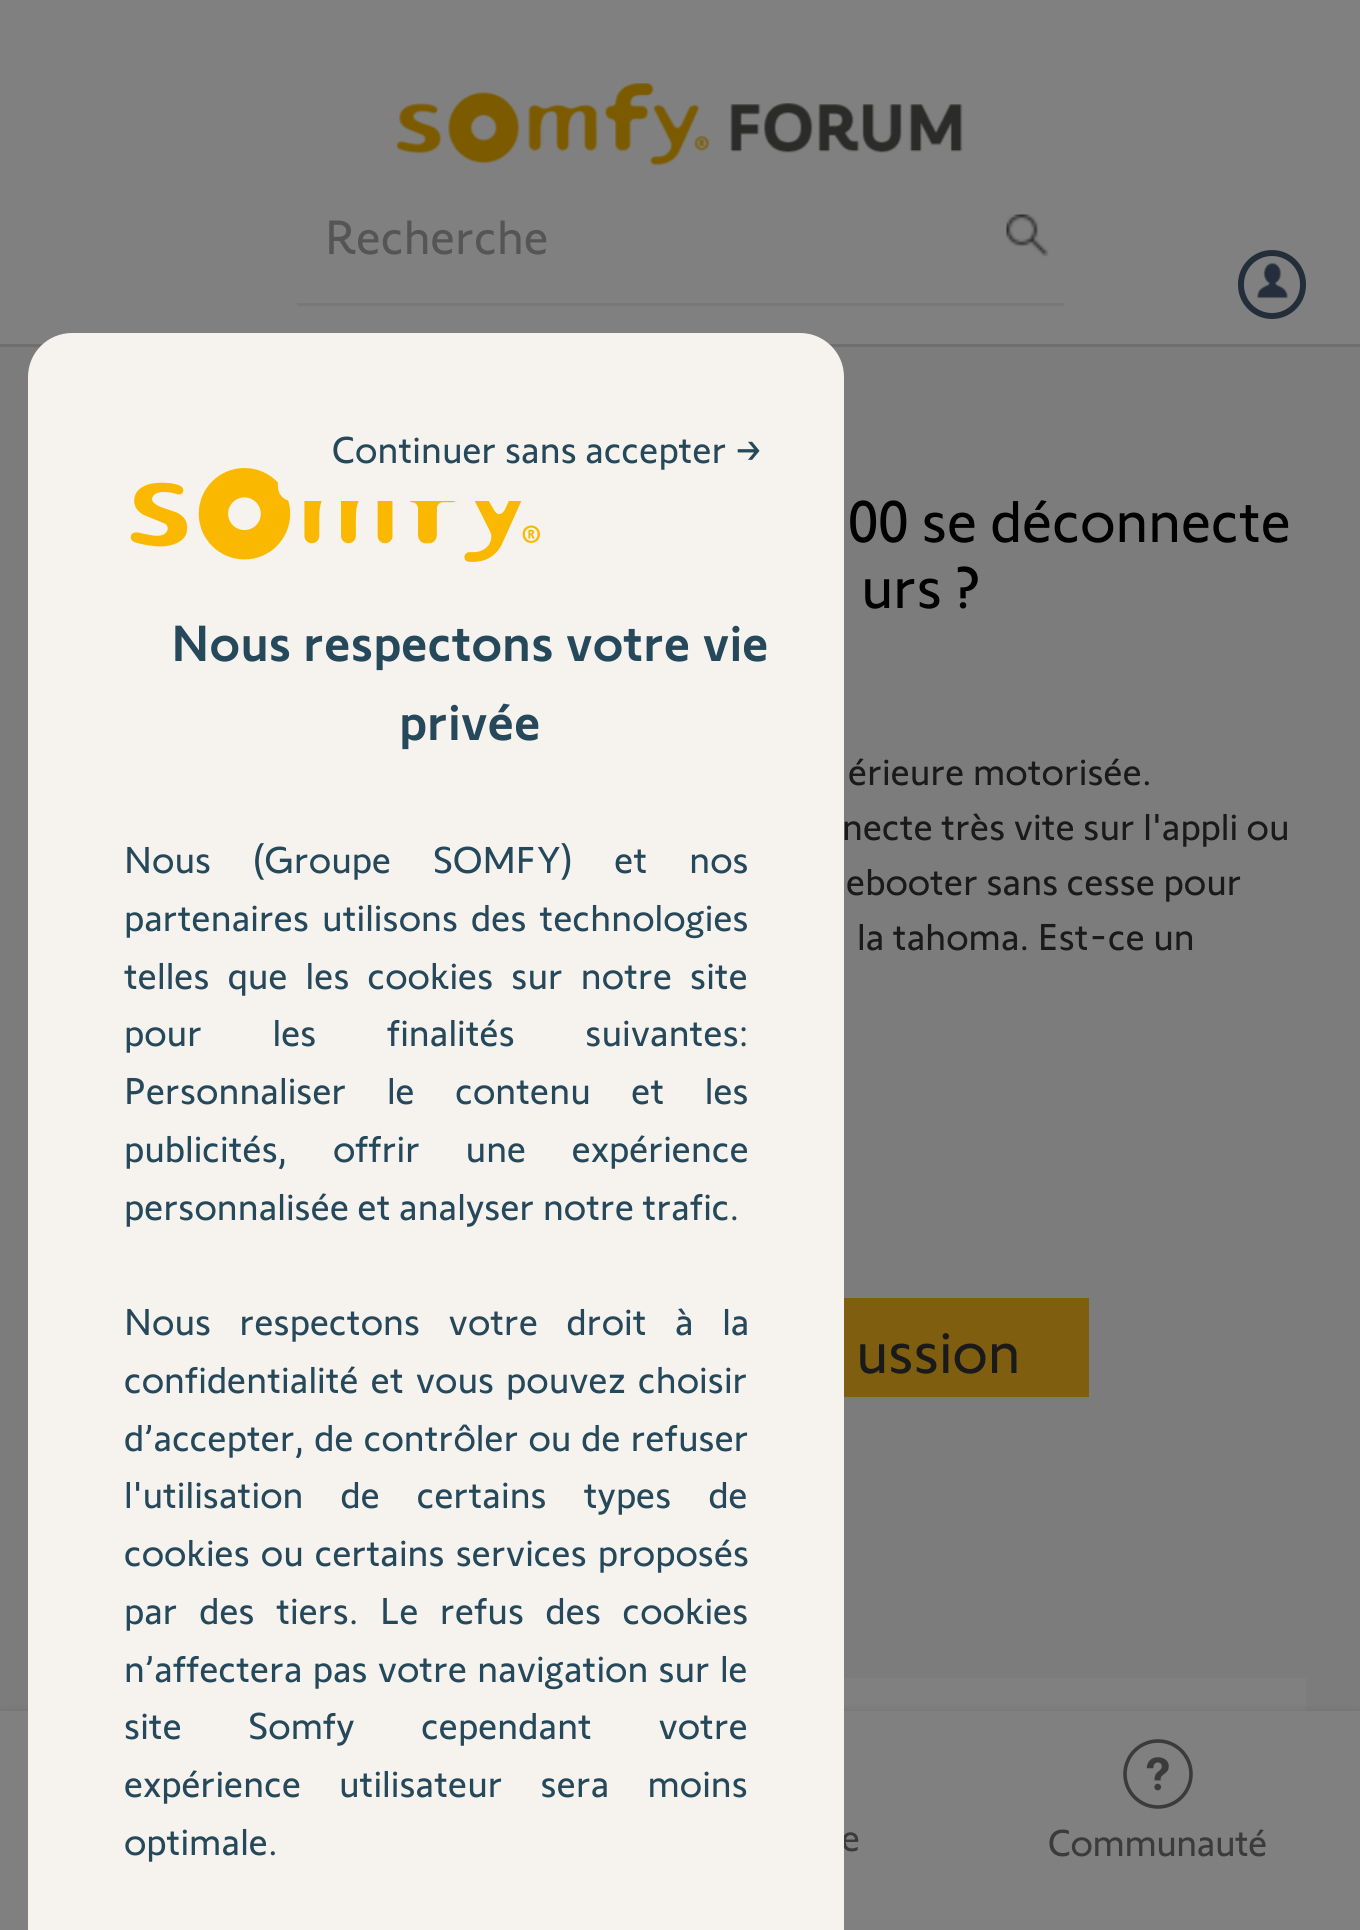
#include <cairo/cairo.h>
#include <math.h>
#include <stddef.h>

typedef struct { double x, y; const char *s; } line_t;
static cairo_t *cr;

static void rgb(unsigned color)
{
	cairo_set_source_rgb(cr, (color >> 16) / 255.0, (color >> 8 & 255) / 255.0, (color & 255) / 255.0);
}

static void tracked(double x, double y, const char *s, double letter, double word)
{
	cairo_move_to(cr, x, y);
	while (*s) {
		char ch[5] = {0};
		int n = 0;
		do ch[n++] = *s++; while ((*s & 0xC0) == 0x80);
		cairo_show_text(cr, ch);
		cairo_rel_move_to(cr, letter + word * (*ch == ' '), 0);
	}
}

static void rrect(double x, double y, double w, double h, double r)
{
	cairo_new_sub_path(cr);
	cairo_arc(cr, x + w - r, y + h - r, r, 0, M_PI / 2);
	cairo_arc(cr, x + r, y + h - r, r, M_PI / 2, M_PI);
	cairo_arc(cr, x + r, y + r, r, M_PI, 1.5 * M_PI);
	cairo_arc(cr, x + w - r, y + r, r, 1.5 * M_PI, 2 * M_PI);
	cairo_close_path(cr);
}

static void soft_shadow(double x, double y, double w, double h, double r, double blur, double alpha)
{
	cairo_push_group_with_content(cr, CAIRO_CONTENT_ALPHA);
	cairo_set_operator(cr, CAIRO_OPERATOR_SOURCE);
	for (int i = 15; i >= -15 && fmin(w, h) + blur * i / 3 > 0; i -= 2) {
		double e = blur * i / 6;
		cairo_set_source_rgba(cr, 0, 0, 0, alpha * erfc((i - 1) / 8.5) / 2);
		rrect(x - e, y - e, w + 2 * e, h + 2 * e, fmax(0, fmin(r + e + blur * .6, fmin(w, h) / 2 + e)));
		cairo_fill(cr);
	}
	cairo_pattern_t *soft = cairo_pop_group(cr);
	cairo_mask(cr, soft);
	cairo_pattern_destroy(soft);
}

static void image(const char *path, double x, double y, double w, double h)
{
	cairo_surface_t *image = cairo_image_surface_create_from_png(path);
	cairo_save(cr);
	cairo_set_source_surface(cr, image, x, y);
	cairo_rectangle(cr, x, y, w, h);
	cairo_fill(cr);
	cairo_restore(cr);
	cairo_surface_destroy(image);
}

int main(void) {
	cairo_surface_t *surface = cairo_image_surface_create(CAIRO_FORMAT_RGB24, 1360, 1930);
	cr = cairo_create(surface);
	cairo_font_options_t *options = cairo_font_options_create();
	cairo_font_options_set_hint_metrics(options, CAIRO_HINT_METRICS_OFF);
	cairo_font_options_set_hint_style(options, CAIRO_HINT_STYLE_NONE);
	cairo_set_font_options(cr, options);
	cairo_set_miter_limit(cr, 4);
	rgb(0x7c7c7c);
	cairo_paint(cr);
	rgb(0x808080);
	cairo_rectangle(cr, 0, 0, 1360, 344);
	cairo_fill(cr);
	image("img/1.png", 396, 83, 567, 83);
	rgb(0x787878);
	cairo_rectangle(cr, 297, 303, 767, 3);
	cairo_fill(cr);
	image("img/2.png", 1006, 214, 43, 43);
	rgb(0x6e6e6e);
	cairo_rectangle(cr, 0, 344, 1360, 3);
	cairo_fill(cr);
	image("img/3.png", 1257, 262, 31, 37);
	rrect(1241, 253, 62, 63, 31);
	rgb(0x242e3a);
	cairo_set_line_width(cr, 6);
	cairo_stroke(cr);
	rgb(0x808080);
	cairo_rectangle(cr, 844, 1678, 462, 33);
	cairo_fill(cr);
	rgb(0x000000);
	soft_shadow(0, 1711, 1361, 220, 0, 4, 0.1);
	rgb(0x808080);
	cairo_rectangle(cr, 0, 1711, 1360, 219);
	cairo_fill(cr);
	image("img/4.png", 1123, 1739, 70, 70);
	rgb(0x805e0f);
	cairo_rectangle(cr, 844, 1298, 245, 99);
	cairo_fill(cr);
	cairo_select_font_face(cr, "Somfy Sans", CAIRO_FONT_SLANT_NORMAL, CAIRO_FONT_WEIGHT_NORMAL);
	cairo_set_font_size(cr, 49.5);
	rgb(0x555556);
	cairo_move_to(cr, 325, 254);
	cairo_show_text(cr, "Recherche");
	cairo_set_font_size(cr, 38.5);
	rgb(0x3b3b3c);
	tracked(841, 1851, "e", -0.5, 0);
	tracked(1048, 1856, "Communauté", -0.5, 0);
	rgb(0xf6f3ef);
	rrect(28, 333, 816, 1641, 44);
	cairo_fill(cr);
	image("img/5.png", 130, 468, 410, 94);
	rrect(278, 399, 539, 102, 14);
	cairo_fill(cr);
	rgb(0x25485a);
	cairo_move_to(cr, 332, 463);
	cairo_show_text(cr, "Continuer sans accepter →");
	cairo_select_font_face(cr, "Somfy Sans Medium", CAIRO_FONT_SLANT_NORMAL, CAIRO_FONT_WEIGHT_NORMAL);
	cairo_set_font_size(cr, 52.25);
	cairo_move_to(cr, 171, 661);
	cairo_show_text(cr, "Nous respectons votre vie");
	cairo_move_to(cr, 399, 740);
	cairo_show_text(cr, "privée");
	cairo_select_font_face(cr, "Somfy Sans", CAIRO_FONT_SLANT_NORMAL, CAIRO_FONT_WEIGHT_NORMAL);
	cairo_set_font_size(cr, 38.5);
	tracked(124, 873, "Nous (Groupe SOMFY) et nos", 0, 33.5);
	tracked(124, 931, "partenaires utilisons des technologies", 0, 4.5);
	tracked(124, 989, "telles que les cookies sur notre site", 0, 9.5);
	tracked(124, 1046, "pour les finalités suivantes:", 0, 62);
	tracked(124, 1104, "Personnaliser le contenu et les", 0, 32);
	tracked(124, 1162, "publicités, offrir une expérience", 0, 37);
	cairo_move_to(cr, 124, 1220);
	cairo_show_text(cr, "personnalisée et analyser notre trafic.");
	tracked(124, 1335, "Nous respectons votre droit à la", 0, 20);
	tracked(124, 1393, "confidentialité et vous pouvez choisir", 0, 3.5);
	tracked(124, 1451, "d’accepter, de contrôler ou de refuser", 0, 1.5);
	tracked(124, 1508, "l'utilisation de certains types de", 0, 28.5);
	tracked(124, 1566, "cookies ou certains services proposés", 0, 2.5);
	tracked(124, 1624, "par des tiers. Le refus des cookies", 0, 13);
	tracked(124, 1682, "n’affectera pas votre navigation sur le", 0, 1.5);
	tracked(124, 1739, "site Somfy cependant votre", 0, 58);
	tracked(124, 1797, "expérience utilisateur sera moins", 0, 29.5);
	cairo_move_to(cr, 124, 1855);
	cairo_show_text(cr, "optimale.");
	cairo_set_font_size(cr, 60.5);
	rgb(0x000000);
	cairo_move_to(cr, 848, 542);
	cairo_show_text(cr, "00 se déconnecte");
	cairo_move_to(cr, 861, 608);
	cairo_show_text(cr, "urs ?");
	cairo_set_font_size(cr, 38.5);
	rgb(0x1a1a1a);
	{
		static const line_t items[] = {
			{848, 785, "érieure motorisée."},
			{842, 840, "necte très vite sur l'appli ou"},
			{846, 895, "ebooter sans cesse pour"},
			{857, 950, "la tahoma. Est-ce un"},
		};
		for (size_t i = 0; i < sizeof items / sizeof *items; i++) {
			cairo_move_to(cr, items[i].x, items[i].y);
			cairo_show_text(cr, items[i].s);
		}
	}
	cairo_set_font_size(cr, 60.5);
	cairo_move_to(cr, 856, 1373);
	cairo_show_text(cr, "ussion");
	cairo_surface_write_to_png(surface, "page.png");
	cairo_font_options_destroy(options);
	cairo_destroy(cr);
	cairo_surface_destroy(surface);
	return 0;
}
